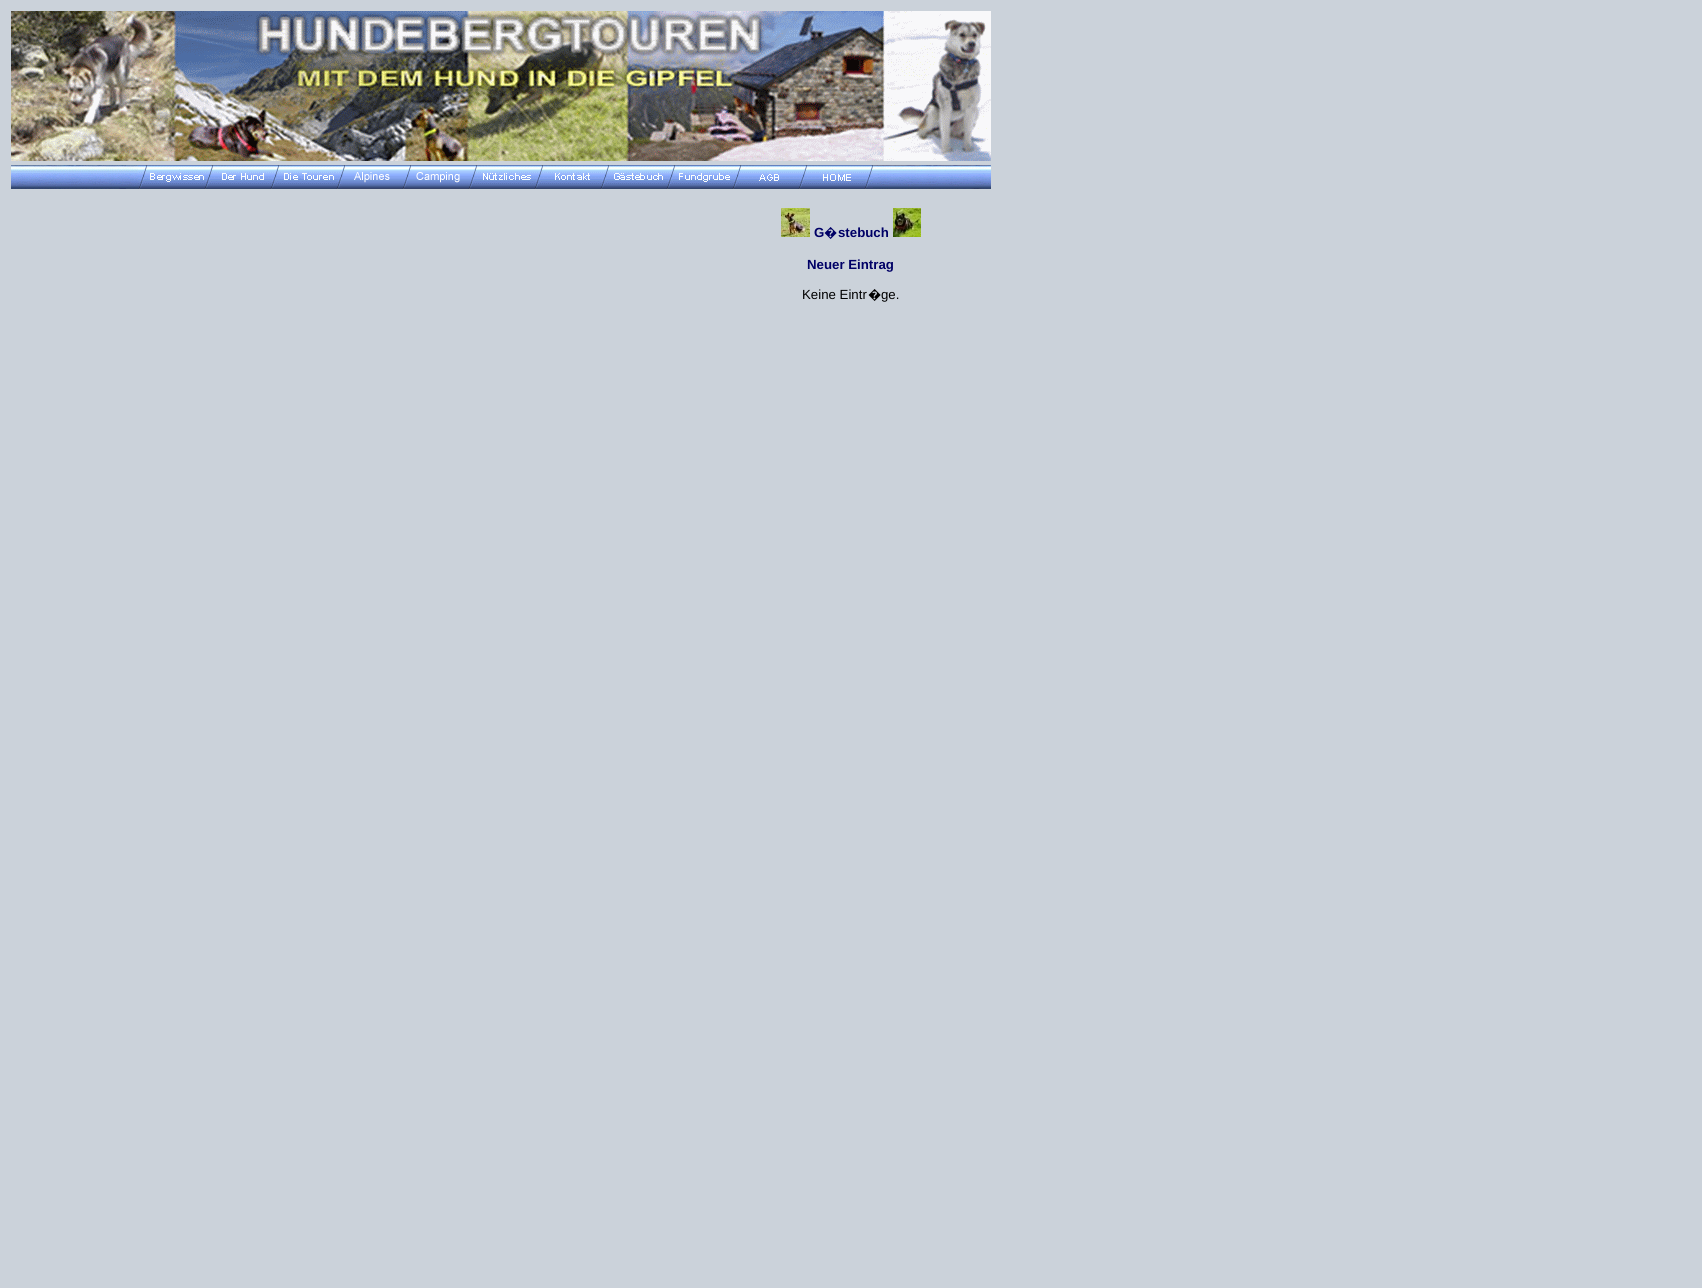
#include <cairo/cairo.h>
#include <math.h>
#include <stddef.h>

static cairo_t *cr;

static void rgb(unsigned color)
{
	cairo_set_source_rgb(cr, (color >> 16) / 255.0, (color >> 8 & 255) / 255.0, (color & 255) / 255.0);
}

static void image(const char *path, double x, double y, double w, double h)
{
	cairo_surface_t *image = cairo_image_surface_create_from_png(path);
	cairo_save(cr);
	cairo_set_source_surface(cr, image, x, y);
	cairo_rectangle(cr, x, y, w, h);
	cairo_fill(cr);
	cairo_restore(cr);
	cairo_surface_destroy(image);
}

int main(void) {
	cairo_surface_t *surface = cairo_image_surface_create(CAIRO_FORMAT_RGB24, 1702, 1288);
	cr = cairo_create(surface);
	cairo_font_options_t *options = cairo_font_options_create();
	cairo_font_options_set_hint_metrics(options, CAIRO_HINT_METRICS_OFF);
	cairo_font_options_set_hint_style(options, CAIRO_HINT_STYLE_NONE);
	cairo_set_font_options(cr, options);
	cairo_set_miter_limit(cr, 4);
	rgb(0xcbd2da);
	cairo_paint(cr);
	image("img/1.png", 11, 11, 980, 150);
	image("img/2.png", 11, 165, 127, 24);
	image("img/3.png", 138, 165, 6, 24);
	image("img/4.png", 144, 165, 66, 24);
	image("img/5.png", 210, 165, 66, 24);
	image("img/6.png", 276, 165, 66, 24);
	image("img/7.png", 342, 165, 66, 24);
	image("img/8.png", 408, 165, 66, 24);
	image("img/9.png", 474, 165, 66, 24);
	image("img/10.png", 540, 165, 66, 24);
	image("img/11.png", 606, 165, 66, 24);
	image("img/12.png", 672, 165, 66, 24);
	image("img/13.png", 738, 165, 66, 24);
	image("img/14.png", 804, 165, 66, 24);
	image("img/15.png", 870, 165, 3, 24);
	image("img/16.png", 873, 165, 118, 24);
	image("img/17.png", 781, 208, 29, 29);
	image("img/18.png", 893, 208, 28, 29);
	cairo_select_font_face(cr, "Liberation Sans", CAIRO_FONT_SLANT_NORMAL, CAIRO_FONT_WEIGHT_BOLD);
	cairo_set_font_size(cr, 13.25);
	rgb(0x000066);
	cairo_move_to(cr, 814, 237);
	cairo_show_text(cr, "G");
	cairo_select_font_face(cr, "Noto Sans", CAIRO_FONT_SLANT_NORMAL, CAIRO_FONT_WEIGHT_BOLD);
	cairo_move_to(cr, 824, 237);
	cairo_show_text(cr, "�");
	cairo_select_font_face(cr, "Liberation Sans", CAIRO_FONT_SLANT_NORMAL, CAIRO_FONT_WEIGHT_BOLD);
	cairo_move_to(cr, 838, 237);
	cairo_show_text(cr, "stebuch");
	cairo_move_to(cr, 807, 269);
	cairo_show_text(cr, "Neuer Eintrag");
	cairo_select_font_face(cr, "Liberation Sans", CAIRO_FONT_SLANT_NORMAL, CAIRO_FONT_WEIGHT_NORMAL);
	rgb(0x000000);
	cairo_move_to(cr, 802, 299);
	cairo_show_text(cr, "Keine Eintr");
	cairo_select_font_face(cr, "Noto Sans", CAIRO_FONT_SLANT_NORMAL, CAIRO_FONT_WEIGHT_NORMAL);
	cairo_move_to(cr, 868, 299);
	cairo_show_text(cr, "�");
	cairo_select_font_face(cr, "Liberation Sans", CAIRO_FONT_SLANT_NORMAL, CAIRO_FONT_WEIGHT_NORMAL);
	cairo_move_to(cr, 881, 299);
	cairo_show_text(cr, "ge.");
	cairo_surface_write_to_png(surface, "page.png");
	cairo_font_options_destroy(options);
	cairo_destroy(cr);
	cairo_surface_destroy(surface);
	return 0;
}
